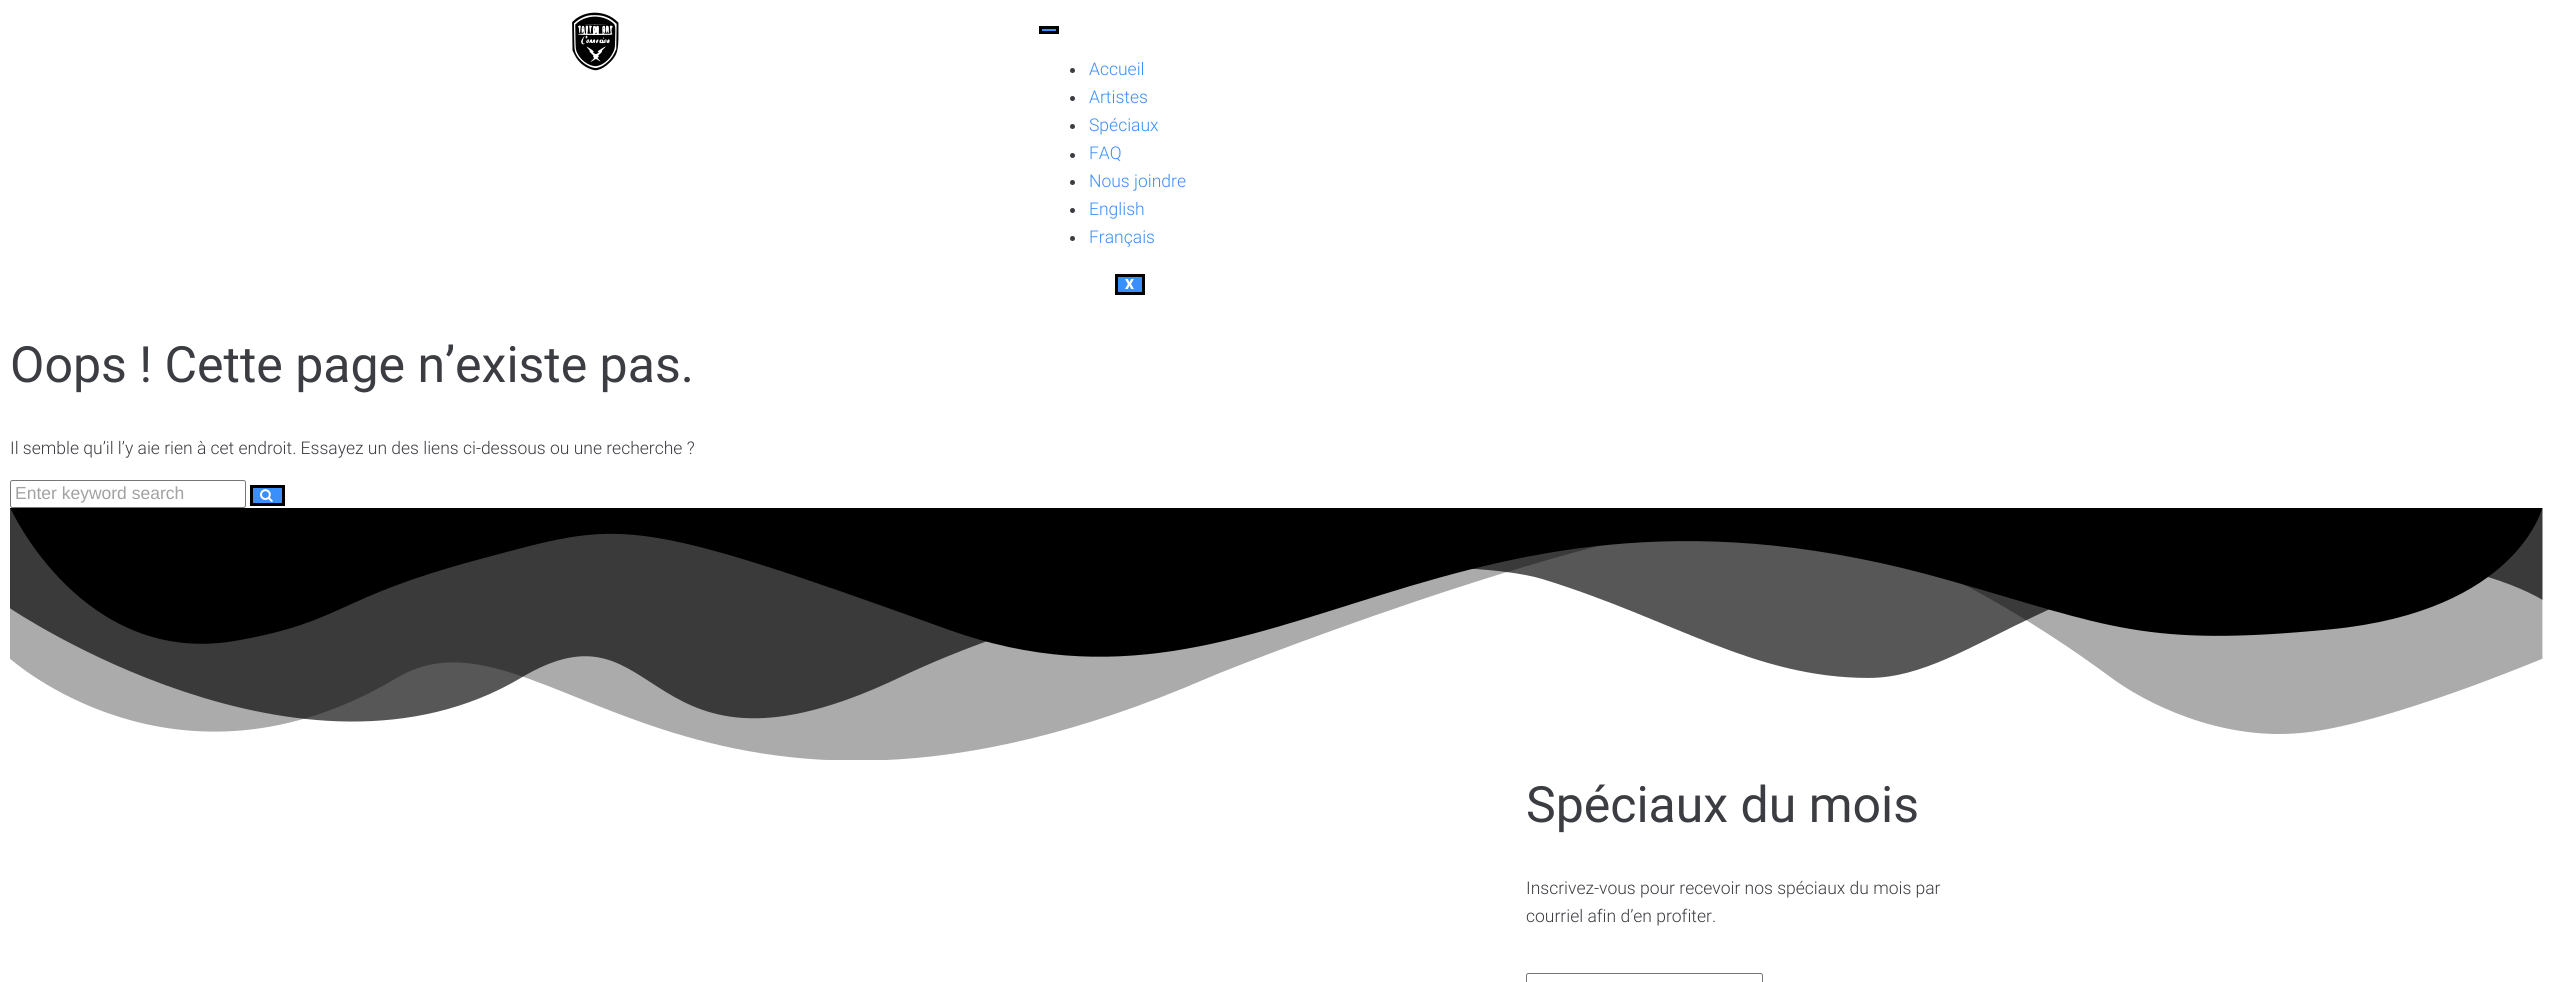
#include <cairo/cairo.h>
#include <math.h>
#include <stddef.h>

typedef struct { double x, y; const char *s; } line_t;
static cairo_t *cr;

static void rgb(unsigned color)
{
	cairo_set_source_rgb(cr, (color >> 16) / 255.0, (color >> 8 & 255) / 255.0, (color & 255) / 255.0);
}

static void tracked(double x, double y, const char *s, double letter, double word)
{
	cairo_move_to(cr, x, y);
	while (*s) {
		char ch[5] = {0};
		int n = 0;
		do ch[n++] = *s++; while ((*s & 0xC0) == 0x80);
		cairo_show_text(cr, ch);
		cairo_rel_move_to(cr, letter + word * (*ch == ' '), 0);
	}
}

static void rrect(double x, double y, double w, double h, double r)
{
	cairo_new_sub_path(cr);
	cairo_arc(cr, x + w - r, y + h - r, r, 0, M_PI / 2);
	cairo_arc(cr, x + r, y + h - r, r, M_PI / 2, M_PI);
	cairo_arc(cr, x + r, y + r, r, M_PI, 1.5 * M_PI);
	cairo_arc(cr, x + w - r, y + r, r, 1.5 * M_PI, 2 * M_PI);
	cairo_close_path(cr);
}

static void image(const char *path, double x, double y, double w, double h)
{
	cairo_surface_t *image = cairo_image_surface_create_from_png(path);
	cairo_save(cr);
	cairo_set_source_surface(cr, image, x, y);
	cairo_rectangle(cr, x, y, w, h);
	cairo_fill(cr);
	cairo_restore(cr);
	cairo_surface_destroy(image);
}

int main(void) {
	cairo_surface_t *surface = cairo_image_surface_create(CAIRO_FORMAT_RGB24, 2552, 982);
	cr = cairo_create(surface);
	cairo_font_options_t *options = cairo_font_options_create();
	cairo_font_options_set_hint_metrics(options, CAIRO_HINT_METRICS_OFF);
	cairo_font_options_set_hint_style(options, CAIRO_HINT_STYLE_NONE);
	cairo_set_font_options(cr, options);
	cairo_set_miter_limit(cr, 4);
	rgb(0xffffff);
	cairo_paint(cr);
	image("img/1.png", 572, 12, 47, 59);
	rgb(0x398ffc);
	cairo_rectangle(cr, 1040.5, 27.5, 17, 5);
	cairo_fill_preserve(cr);
	rgb(0x000000);
	cairo_set_line_width(cr, 3);
	cairo_stroke(cr);
	rgb(0x3b3d42);
	cairo_arc(cr, 1072.5, 70.5, 2.5, 0, 2 * M_PI);
	cairo_fill(cr);
	cairo_arc(cr, 1072.5, 98.5, 2.5, 0, 2 * M_PI);
	cairo_fill(cr);
	cairo_arc(cr, 1072.5, 126.5, 2.5, 0, 2 * M_PI);
	cairo_fill(cr);
	cairo_arc(cr, 1072.5, 155.5, 2.5, 0, 2 * M_PI);
	cairo_fill(cr);
	cairo_arc(cr, 1072.5, 182.5, 2.5, 0, 2 * M_PI);
	cairo_fill(cr);
	cairo_arc(cr, 1072.5, 210.5, 2.5, 0, 2 * M_PI);
	cairo_fill(cr);
	cairo_arc(cr, 1072.5, 238.5, 2.5, 0, 2 * M_PI);
	cairo_fill(cr);
	rgb(0x398ffc);
	cairo_rectangle(cr, 1116.5, 275.5, 27, 18);
	cairo_fill_preserve(cr);
	rgb(0x000000);
	cairo_stroke(cr);
	rrect(10.5, 480.5, 235, 27, 2);
	rgb(0x767676);
	cairo_set_line_width(cr, 1);
	cairo_stroke(cr);
	rgb(0x398ffc);
	cairo_rectangle(cr, 251.5, 486.5, 32, 18);
	cairo_fill_preserve(cr);
	rgb(0x000000);
	cairo_set_line_width(cr, 3);
	cairo_stroke(cr);
	image("img/2.png", 260, 489, 13, 13);
	image("img/3.png", 10, 508, 2533, 252);
	rrect(1526.5, 973.5, 236, 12, 2);
	rgb(0x767676);
	cairo_set_line_width(cr, 1);
	cairo_stroke(cr);
	cairo_select_font_face(cr, "Roboto Light", CAIRO_FONT_SLANT_NORMAL, CAIRO_FONT_WEIGHT_NORMAL);
	cairo_set_font_size(cr, 17.5);
	rgb(0x398ffc);
	{
		static const line_t items[] = {
			{1089, 75, "Accueil"},
			{1089, 103, "Artistes"},
			{1089, 131, "Spéciaux"},
			{1089, 159, "FAQ"},
			{1089, 187, "Nous joindre"},
			{1089, 215, "English"},
			{1089, 243, "Français"},
		};
		for (size_t i = 0; i < sizeof items / sizeof *items; i++) {
			cairo_move_to(cr, items[i].x, items[i].y);
			cairo_show_text(cr, items[i].s);
		}
	}
	cairo_select_font_face(cr, "Roboto Black", CAIRO_FONT_SLANT_NORMAL, CAIRO_FONT_WEIGHT_NORMAL);
	cairo_set_font_size(cr, 14);
	rgb(0xffffff);
	tracked(1125, 289, "X", 1, 0);
	cairo_select_font_face(cr, "Roboto", CAIRO_FONT_SLANT_NORMAL, CAIRO_FONT_WEIGHT_NORMAL);
	cairo_set_font_size(cr, 50);
	rgb(0x3b3d42);
	cairo_move_to(cr, 10, 382);
	cairo_show_text(cr, "Oops ! Cette page n’existe pas.");
	cairo_select_font_face(cr, "Roboto Light", CAIRO_FONT_SLANT_NORMAL, CAIRO_FONT_WEIGHT_NORMAL);
	cairo_set_font_size(cr, 17.5);
	cairo_move_to(cr, 10, 454);
	cairo_show_text(cr, "Il semble qu’il l’y aie rien à cet endroit. Essayez un des liens ci-dessous ou une recherche ?");
	cairo_select_font_face(cr, "Liberation Sans", CAIRO_FONT_SLANT_NORMAL, CAIRO_FONT_WEIGHT_NORMAL);
	rgb(0xa1a2a4);
	cairo_move_to(cr, 15, 499);
	cairo_show_text(cr, "Enter keyword search");
	cairo_select_font_face(cr, "Roboto", CAIRO_FONT_SLANT_NORMAL, CAIRO_FONT_WEIGHT_NORMAL);
	cairo_set_font_size(cr, 50);
	rgb(0x3b3d42);
	cairo_move_to(cr, 1526, 822);
	cairo_show_text(cr, "Spéciaux du mois");
	cairo_select_font_face(cr, "Roboto Light", CAIRO_FONT_SLANT_NORMAL, CAIRO_FONT_WEIGHT_NORMAL);
	cairo_set_font_size(cr, 17.5);
	cairo_move_to(cr, 1526, 894);
	cairo_show_text(cr, "Inscrivez-vous pour recevoir nos spéciaux du mois par");
	cairo_move_to(cr, 1526, 922);
	cairo_show_text(cr, "courriel afin d’en profiter.");
	cairo_surface_write_to_png(surface, "page.png");
	cairo_font_options_destroy(options);
	cairo_destroy(cr);
	cairo_surface_destroy(surface);
	return 0;
}
